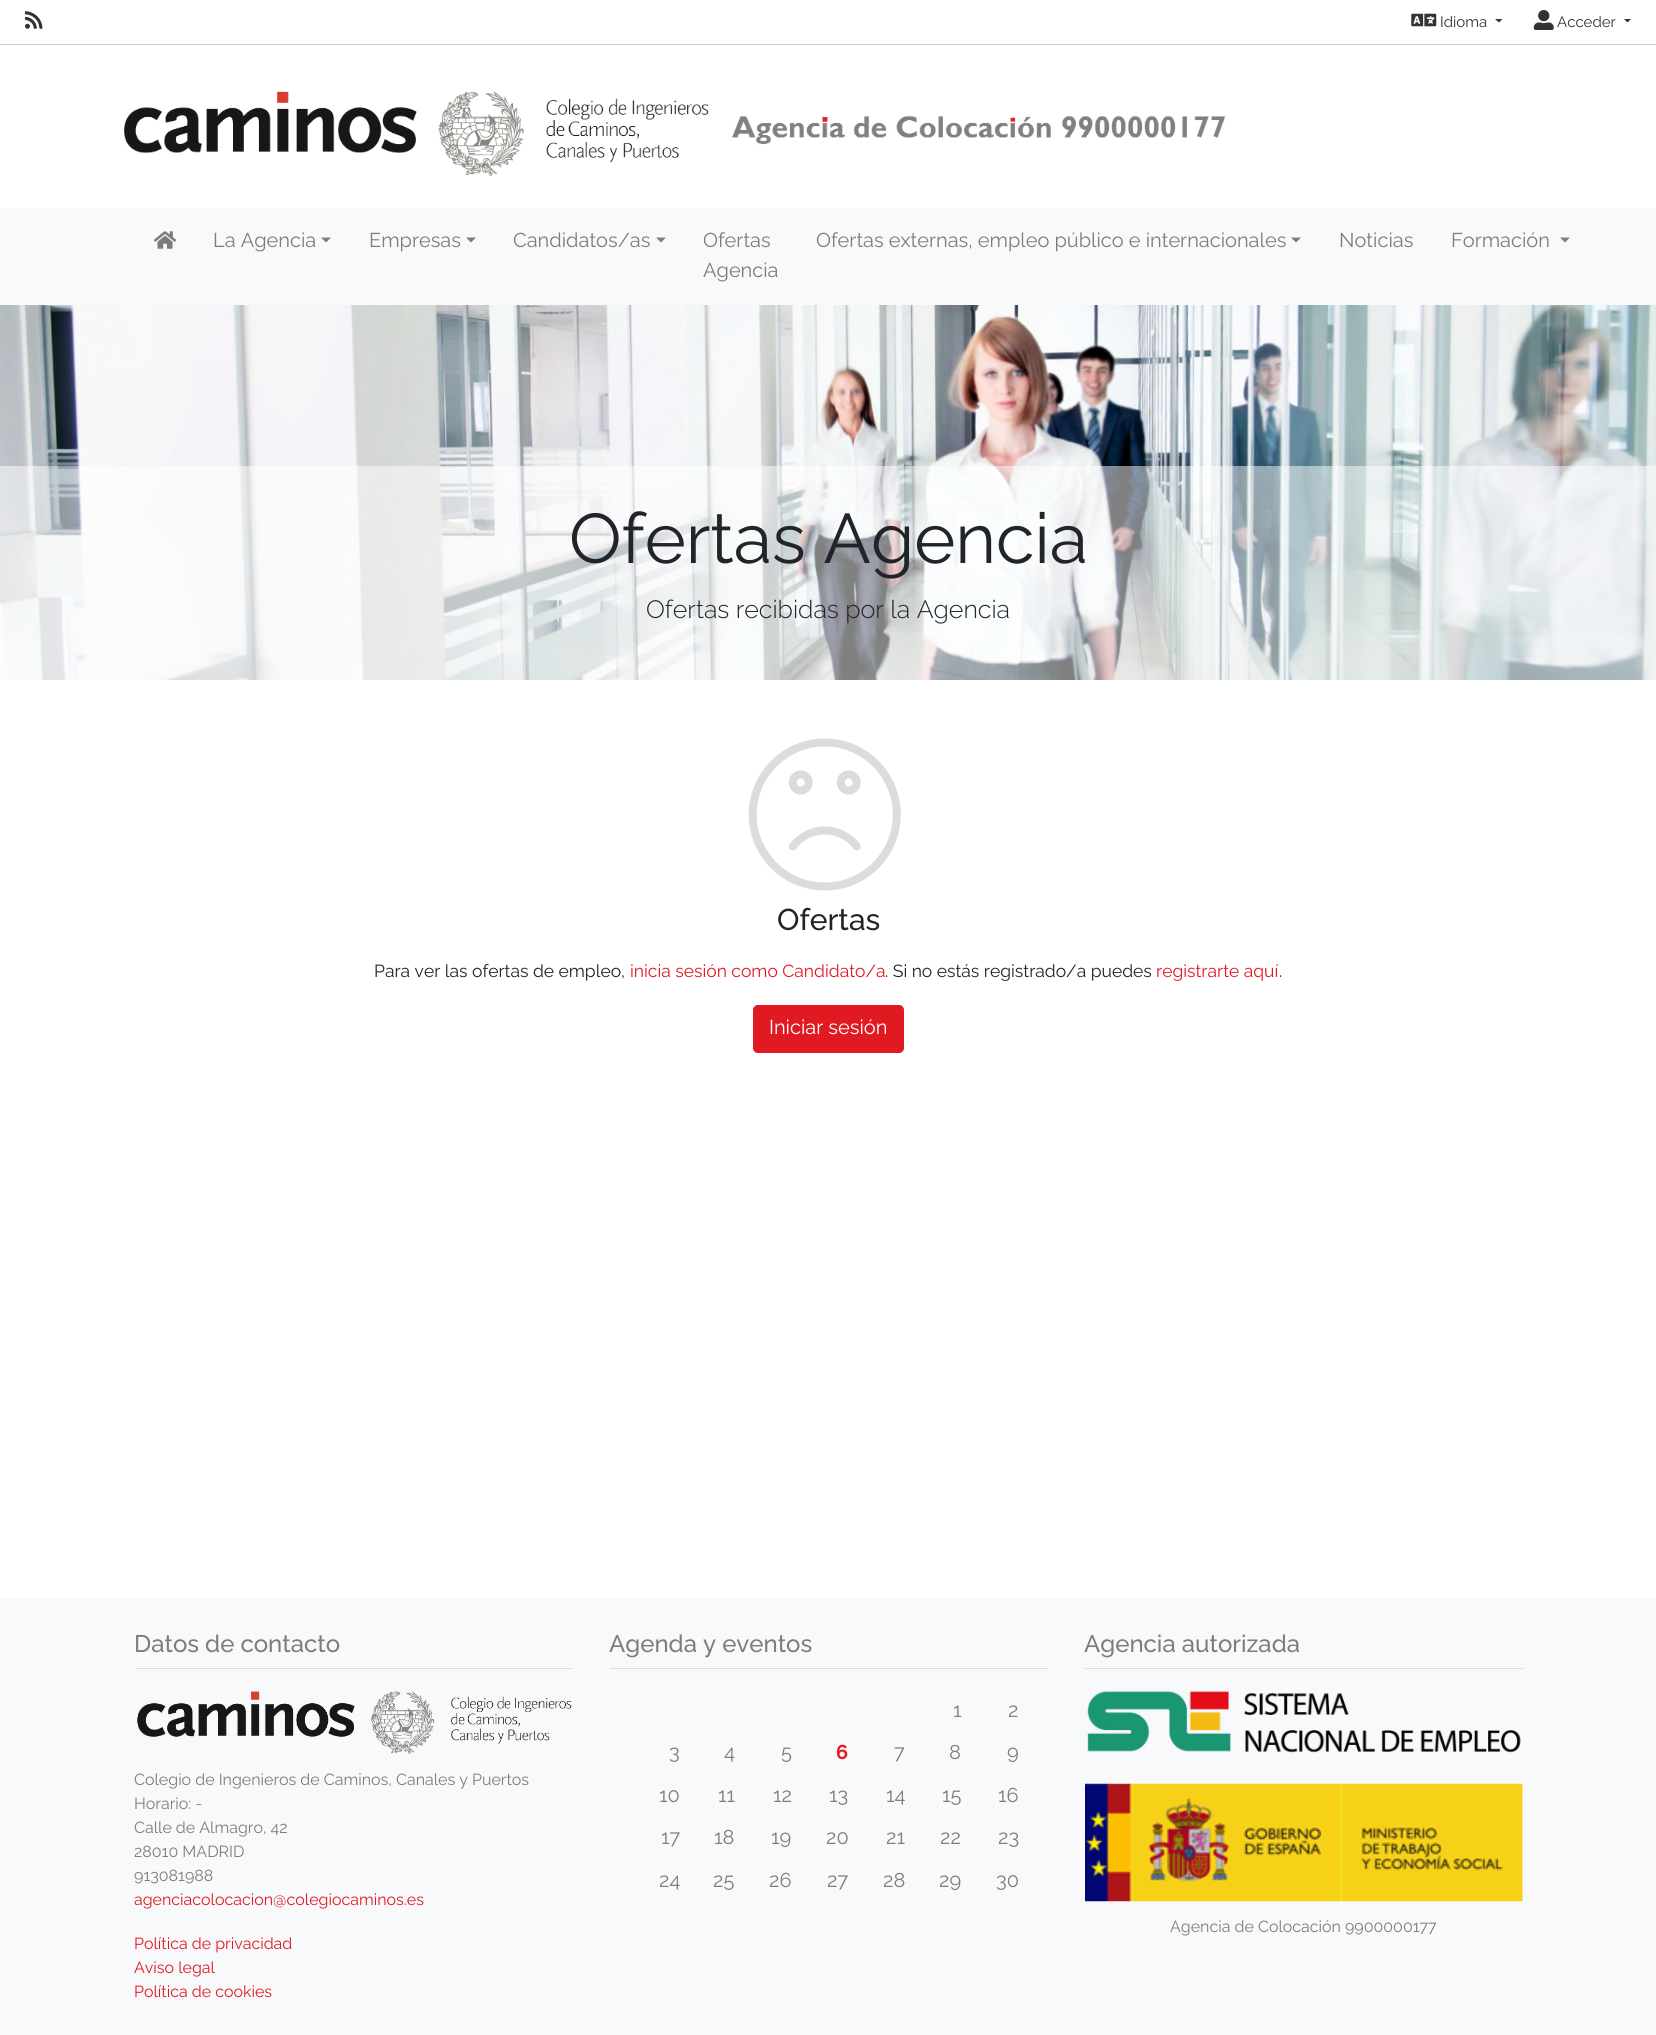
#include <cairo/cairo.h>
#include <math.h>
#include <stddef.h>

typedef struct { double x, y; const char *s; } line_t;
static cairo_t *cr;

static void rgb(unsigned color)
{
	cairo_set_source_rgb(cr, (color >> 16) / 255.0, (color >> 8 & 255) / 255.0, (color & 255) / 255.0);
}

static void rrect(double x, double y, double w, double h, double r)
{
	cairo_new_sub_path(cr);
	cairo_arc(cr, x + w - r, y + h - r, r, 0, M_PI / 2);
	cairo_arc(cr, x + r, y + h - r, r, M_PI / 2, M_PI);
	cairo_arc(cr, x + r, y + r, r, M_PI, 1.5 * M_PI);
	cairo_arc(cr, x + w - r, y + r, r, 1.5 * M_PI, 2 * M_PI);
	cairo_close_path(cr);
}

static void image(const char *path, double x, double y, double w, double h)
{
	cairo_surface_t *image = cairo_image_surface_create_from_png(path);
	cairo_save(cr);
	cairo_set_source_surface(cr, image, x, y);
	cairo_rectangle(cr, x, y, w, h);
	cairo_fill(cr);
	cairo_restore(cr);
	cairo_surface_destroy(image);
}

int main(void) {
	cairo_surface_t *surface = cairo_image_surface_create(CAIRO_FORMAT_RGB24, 1656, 2035);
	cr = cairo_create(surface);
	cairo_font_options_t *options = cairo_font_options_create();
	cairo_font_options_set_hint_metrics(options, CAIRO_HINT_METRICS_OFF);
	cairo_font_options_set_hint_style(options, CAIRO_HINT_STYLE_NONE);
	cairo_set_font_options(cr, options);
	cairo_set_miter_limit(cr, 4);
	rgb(0xffffff);
	cairo_paint(cr);
	rgb(0xcccccc);
	cairo_rectangle(cr, 0, 44, 1656, 1);
	cairo_fill(cr);
	image("img/1.png", 25, 11, 18, 18);
	image("img/2.png", 1411, 13, 26, 14);
	rgb(0x333333);
	cairo_new_path(cr);
	cairo_move_to(cr, 1495, 19);
	cairo_line_to(cr, 1502.5, 19);
	cairo_line_to(cr, 1499, 22.5);
	cairo_close_path(cr);
	cairo_fill(cr);
	image("img/3.png", 1533, 10, 21, 20);
	cairo_new_path(cr);
	cairo_move_to(cr, 1624, 19);
	cairo_line_to(cr, 1631, 19);
	cairo_line_to(cr, 1627.5, 22.5);
	cairo_close_path(cr);
	cairo_fill(cr);
	image("img/4.png", 124, 91, 1102, 85);
	rgb(0xf8f9fa);
	cairo_rectangle(cr, 0, 208, 1656, 97);
	cairo_fill(cr);
	image("img/5.png", 153, 231, 24, 18);
	rgb(0x7c7d7d);
	cairo_new_path(cr);
	cairo_move_to(cr, 321, 237.5);
	cairo_line_to(cr, 331, 237.5);
	cairo_line_to(cr, 326, 242.5);
	cairo_close_path(cr);
	cairo_fill(cr);
	cairo_new_path(cr);
	cairo_move_to(cr, 466, 237.5);
	cairo_line_to(cr, 476, 237.5);
	cairo_line_to(cr, 471, 242.5);
	cairo_close_path(cr);
	cairo_fill(cr);
	cairo_new_path(cr);
	cairo_move_to(cr, 656, 237.5);
	cairo_line_to(cr, 666, 237.5);
	cairo_line_to(cr, 661, 242.5);
	cairo_close_path(cr);
	cairo_fill(cr);
	cairo_new_path(cr);
	cairo_move_to(cr, 1291, 237.5);
	cairo_line_to(cr, 1301, 237.5);
	cairo_line_to(cr, 1296, 242.5);
	cairo_close_path(cr);
	cairo_fill(cr);
	cairo_new_path(cr);
	cairo_move_to(cr, 1560, 237.5);
	cairo_line_to(cr, 1570, 237.5);
	cairo_line_to(cr, 1565, 242.5);
	cairo_close_path(cr);
	cairo_fill(cr);
	image("img/6.png", 0, 305, 1656, 375);
	cairo_set_source_rgba(cr, 1, 1, 1, 0.5);
	cairo_rectangle(cr, 0, 466, 1656, 214);
	cairo_fill(cr);
	image("img/7.png", 748, 738, 153, 153);
	rgb(0xe11a22);
	rrect(753.5, 1005.5, 150, 47, 4.5);
	cairo_fill_preserve(cr);
	cairo_set_line_width(cr, 1);
	cairo_stroke(cr);
	rgb(0xf8f9fa);
	cairo_rectangle(cr, 0, 1598, 1656, 437);
	cairo_fill(cr);
	rgb(0xdcdcdc);
	cairo_rectangle(cr, 135, 1668, 438, 1);
	cairo_fill(cr);
	image("img/8.png", 137, 1691, 435, 63);
	cairo_rectangle(cr, 610, 1668, 438, 1);
	cairo_fill(cr);
	cairo_rectangle(cr, 1085, 1668, 438, 1);
	cairo_fill(cr);
	image("img/9.png", 1086, 1689, 435, 64);
	image("img/10.png", 1085, 1783, 438, 119);
	cairo_select_font_face(cr, "Raleway", CAIRO_FONT_SLANT_NORMAL, CAIRO_FONT_WEIGHT_NORMAL);
	cairo_set_font_size(cr, 15);
	rgb(0x333333);
	cairo_move_to(cr, 1440, 27);
	cairo_show_text(cr, "Idioma");
	cairo_move_to(cr, 1557, 27);
	cairo_show_text(cr, "Acceder");
	cairo_set_font_size(cr, 20);
	rgb(0x7c7d7d);
	{
		static const line_t items[] = {
			{213, 247, "La Agencia"},
			{369, 247, "Empresas"},
			{513, 247, "Candidatos/as"},
			{703, 247, "Ofertas"},
			{703, 277, "Agencia"},
			{816, 247, "Ofertas externas, empleo público e internacionales"},
			{1339, 247, "Noticias"},
			{1451, 247, "Formación"},
		};
		for (size_t i = 0; i < sizeof items / sizeof *items; i++) {
			cairo_move_to(cr, items[i].x, items[i].y);
			cairo_show_text(cr, items[i].s);
		}
	}
	cairo_set_font_size(cr, 70);
	rgb(0x212529);
	cairo_move_to(cr, 569, 563);
	cairo_show_text(cr, "Ofertas Agencia");
	cairo_select_font_face(cr, "Raleway Light", CAIRO_FONT_SLANT_NORMAL, CAIRO_FONT_WEIGHT_NORMAL);
	cairo_set_font_size(cr, 25);
	cairo_move_to(cr, 646, 618);
	cairo_show_text(cr, "Ofertas recibidas por la Agencia");
	cairo_select_font_face(cr, "Raleway Medium", CAIRO_FONT_SLANT_NORMAL, CAIRO_FONT_WEIGHT_NORMAL);
	cairo_set_font_size(cr, 30);
	cairo_move_to(cr, 777, 930);
	cairo_show_text(cr, "Ofertas");
	cairo_select_font_face(cr, "Raleway", CAIRO_FONT_SLANT_NORMAL, CAIRO_FONT_WEIGHT_NORMAL);
	cairo_set_font_size(cr, 17.5);
	cairo_move_to(cr, 374, 977);
	cairo_show_text(cr, "Para ver las ofertas de empleo,");
	rgb(0xe11a22);
	cairo_move_to(cr, 630, 977);
	cairo_show_text(cr, "inicia sesión como Candidato/a");
	rgb(0x212529);
	cairo_move_to(cr, 885, 977);
	cairo_show_text(cr, ". Si no estás registrado/a puedes");
	rgb(0xe11a22);
	cairo_move_to(cr, 1156, 977);
	cairo_show_text(cr, "registrarte aquí");
	rgb(0x212529);
	cairo_move_to(cr, 1279, 977);
	cairo_show_text(cr, ".");
	cairo_set_font_size(cr, 20);
	rgb(0xffffff);
	cairo_move_to(cr, 769, 1034);
	cairo_show_text(cr, "Iniciar sesión");
	cairo_select_font_face(cr, "Raleway Medium", CAIRO_FONT_SLANT_NORMAL, CAIRO_FONT_WEIGHT_NORMAL);
	cairo_set_font_size(cr, 24);
	rgb(0x7c7d7d);
	cairo_move_to(cr, 134, 1652);
	cairo_show_text(cr, "Datos de contacto");
	cairo_select_font_face(cr, "Raleway", CAIRO_FONT_SLANT_NORMAL, CAIRO_FONT_WEIGHT_NORMAL);
	cairo_set_font_size(cr, 16);
	{
		static const line_t items[] = {
			{134, 1785, "Colegio de Ingenieros de Caminos, Canales y Puertos"},
			{134, 1809, "Horario: -"},
			{134, 1833, "Calle de Almagro, 42"},
			{134, 1857, "28010 MADRID"},
			{134, 1881, "913081988"},
		};
		for (size_t i = 0; i < sizeof items / sizeof *items; i++) {
			cairo_move_to(cr, items[i].x, items[i].y);
			cairo_show_text(cr, items[i].s);
		}
	}
	rgb(0xe11a22);
	{
		static const line_t items[] = {
			{134, 1905, "agenciacolocacion@colegiocaminos.es"},
			{134, 1949, "Política de privacidad"},
			{134, 1973, "Aviso legal"},
			{134, 1997, "Política de cookies"},
		};
		for (size_t i = 0; i < sizeof items / sizeof *items; i++) {
			cairo_move_to(cr, items[i].x, items[i].y);
			cairo_show_text(cr, items[i].s);
		}
	}
	cairo_select_font_face(cr, "Raleway Medium", CAIRO_FONT_SLANT_NORMAL, CAIRO_FONT_WEIGHT_NORMAL);
	cairo_set_font_size(cr, 24);
	rgb(0x7c7d7d);
	cairo_move_to(cr, 609, 1652);
	cairo_show_text(cr, "Agenda y eventos");
	cairo_select_font_face(cr, "Raleway", CAIRO_FONT_SLANT_NORMAL, CAIRO_FONT_WEIGHT_NORMAL);
	cairo_set_font_size(cr, 20);
	{
		static const line_t items[] = {
			{953, 1717, "1"},
			{1008, 1717, "2"},
			{669, 1759, "3"},
			{724, 1759, "4"},
			{781, 1759, "5"},
		};
		for (size_t i = 0; i < sizeof items / sizeof *items; i++) {
			cairo_move_to(cr, items[i].x, items[i].y);
			cairo_show_text(cr, items[i].s);
		}
	}
	cairo_select_font_face(cr, "Raleway", CAIRO_FONT_SLANT_NORMAL, CAIRO_FONT_WEIGHT_BOLD);
	rgb(0xe11a22);
	cairo_move_to(cr, 836, 1759);
	cairo_show_text(cr, "6");
	cairo_select_font_face(cr, "Raleway", CAIRO_FONT_SLANT_NORMAL, CAIRO_FONT_WEIGHT_NORMAL);
	rgb(0x7c7d7d);
	{
		static const line_t items[] = {
			{894, 1759, "7"},
			{949, 1759, "8"},
			{1007, 1759, "9"},
			{659, 1802, "10"},
			{718, 1802, "11"},
			{773, 1802, "12"},
			{829, 1802, "13"},
			{886, 1802, "14"},
			{942, 1802, "15"},
			{998, 1802, "16"},
			{661, 1844, "17"},
			{714, 1844, "18"},
			{771, 1844, "19"},
			{826, 1844, "20"},
			{886, 1844, "21"},
			{940, 1844, "22"},
			{998, 1844, "23"},
			{659, 1887, "24"},
			{713, 1887, "25"},
			{769, 1887, "26"},
			{827, 1887, "27"},
			{883, 1887, "28"},
			{939, 1887, "29"},
			{996, 1887, "30"},
		};
		for (size_t i = 0; i < sizeof items / sizeof *items; i++) {
			cairo_move_to(cr, items[i].x, items[i].y);
			cairo_show_text(cr, items[i].s);
		}
	}
	cairo_select_font_face(cr, "Raleway Medium", CAIRO_FONT_SLANT_NORMAL, CAIRO_FONT_WEIGHT_NORMAL);
	cairo_set_font_size(cr, 24);
	cairo_move_to(cr, 1084, 1652);
	cairo_show_text(cr, "Agencia autorizada");
	cairo_select_font_face(cr, "Raleway", CAIRO_FONT_SLANT_NORMAL, CAIRO_FONT_WEIGHT_NORMAL);
	cairo_set_font_size(cr, 16);
	cairo_move_to(cr, 1170, 1932);
	cairo_show_text(cr, "Agencia de Colocación 9900000177");
	cairo_surface_write_to_png(surface, "page.png");
	cairo_font_options_destroy(options);
	cairo_destroy(cr);
	cairo_surface_destroy(surface);
	return 0;
}
